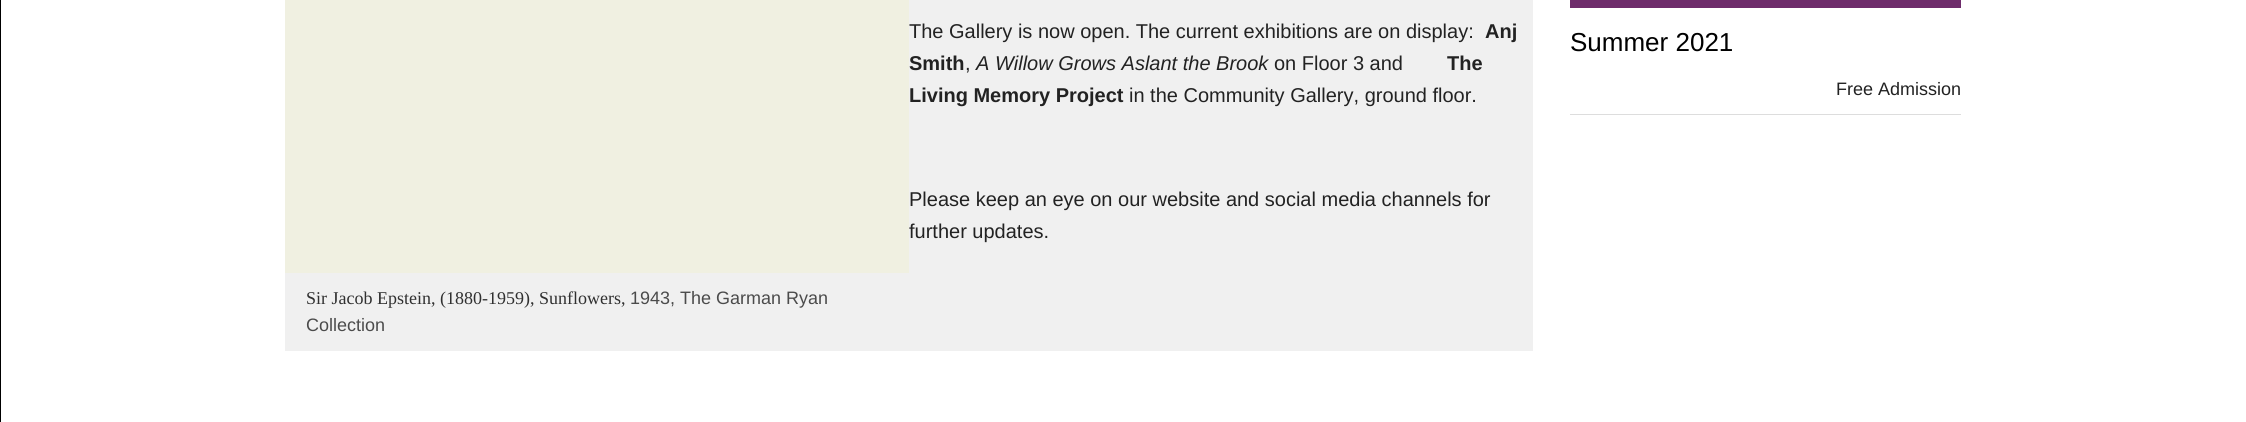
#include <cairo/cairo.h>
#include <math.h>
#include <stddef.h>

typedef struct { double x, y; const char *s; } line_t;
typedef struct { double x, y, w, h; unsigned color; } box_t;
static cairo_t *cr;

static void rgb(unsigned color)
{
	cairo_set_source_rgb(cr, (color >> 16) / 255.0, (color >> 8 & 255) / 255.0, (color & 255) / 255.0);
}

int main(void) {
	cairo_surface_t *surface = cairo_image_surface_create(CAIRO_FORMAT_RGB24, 2246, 422);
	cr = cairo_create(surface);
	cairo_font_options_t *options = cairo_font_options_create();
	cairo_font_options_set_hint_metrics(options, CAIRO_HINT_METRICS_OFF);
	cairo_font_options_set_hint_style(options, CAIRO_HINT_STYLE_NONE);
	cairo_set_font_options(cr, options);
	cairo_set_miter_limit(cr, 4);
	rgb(0xffffff);
	cairo_paint(cr);
	{
		static const box_t items[] = {
			{0, 0, 1, 422, 0x000000},
			{285, 0, 1248, 351, 0xf0f0f0},
			{285, 0, 624, 273, 0xf0f0e1},
			{1570, 0, 391, 8, 0x6e2c6b},
			{1570, 114, 391, 1, 0xdddddd},
		};
		for (size_t i = 0; i < sizeof items / sizeof *items; i++) {
			rgb(items[i].color);
			cairo_rectangle(cr, items[i].x, items[i].y, items[i].w, items[i].h);
			cairo_fill(cr);
		}
	}
	cairo_select_font_face(cr, "Liberation Sans", CAIRO_FONT_SLANT_NORMAL, CAIRO_FONT_WEIGHT_NORMAL);
	cairo_set_font_size(cr, 20);
	rgb(0x222222);
	cairo_move_to(cr, 909, 38);
	cairo_show_text(cr, "The Gallery is now open. The current exhibitions are on display:");
	cairo_select_font_face(cr, "Liberation Sans", CAIRO_FONT_SLANT_NORMAL, CAIRO_FONT_WEIGHT_BOLD);
	cairo_move_to(cr, 1485, 38);
	cairo_show_text(cr, "Anj");
	cairo_move_to(cr, 909, 70);
	cairo_show_text(cr, "Smith");
	cairo_select_font_face(cr, "Liberation Sans", CAIRO_FONT_SLANT_NORMAL, CAIRO_FONT_WEIGHT_NORMAL);
	cairo_move_to(cr, 965, 70);
	cairo_show_text(cr, ",");
	cairo_select_font_face(cr, "Liberation Sans", CAIRO_FONT_SLANT_ITALIC, CAIRO_FONT_WEIGHT_NORMAL);
	cairo_move_to(cr, 976, 70);
	cairo_show_text(cr, "A Willow Grows Aslant the Brook");
	cairo_select_font_face(cr, "Liberation Sans", CAIRO_FONT_SLANT_NORMAL, CAIRO_FONT_WEIGHT_NORMAL);
	cairo_move_to(cr, 1274, 70);
	cairo_show_text(cr, "on Floor 3 and");
	cairo_select_font_face(cr, "Liberation Sans", CAIRO_FONT_SLANT_NORMAL, CAIRO_FONT_WEIGHT_BOLD);
	cairo_move_to(cr, 1447, 70);
	cairo_show_text(cr, "The");
	cairo_move_to(cr, 909, 102);
	cairo_show_text(cr, "Living Memory Project");
	cairo_select_font_face(cr, "Liberation Sans", CAIRO_FONT_SLANT_NORMAL, CAIRO_FONT_WEIGHT_NORMAL);
	{
		static const line_t items[] = {
			{1129, 102, "in the Community Gallery, ground floor."},
			{909, 206, "Please keep an eye on our website and social media channels for"},
			{909, 238, "further updates."},
		};
		for (size_t i = 0; i < sizeof items / sizeof *items; i++) {
			cairo_move_to(cr, items[i].x, items[i].y);
			cairo_show_text(cr, items[i].s);
		}
	}
	cairo_select_font_face(cr, "Liberation Serif", CAIRO_FONT_SLANT_NORMAL, CAIRO_FONT_WEIGHT_NORMAL);
	cairo_set_font_size(cr, 18);
	rgb(0x303030);
	cairo_move_to(cr, 306, 304);
	cairo_show_text(cr, "Sir Jacob Epstein, (1880-1959), Sunflowers,");
	cairo_select_font_face(cr, "Liberation Sans", CAIRO_FONT_SLANT_NORMAL, CAIRO_FONT_WEIGHT_NORMAL);
	rgb(0x4b4b4b);
	cairo_move_to(cr, 630, 304);
	cairo_show_text(cr, "1943, The Garman Ryan");
	cairo_move_to(cr, 306, 331);
	cairo_show_text(cr, "Collection");
	cairo_set_font_size(cr, 26);
	rgb(0x000000);
	cairo_move_to(cr, 1570, 51);
	cairo_show_text(cr, "Summer 2021");
	cairo_set_font_size(cr, 18);
	rgb(0x222222);
	cairo_move_to(cr, 1836, 95);
	cairo_show_text(cr, "Free Admission");
	cairo_surface_write_to_png(surface, "page.png");
	cairo_font_options_destroy(options);
	cairo_destroy(cr);
	cairo_surface_destroy(surface);
	return 0;
}
